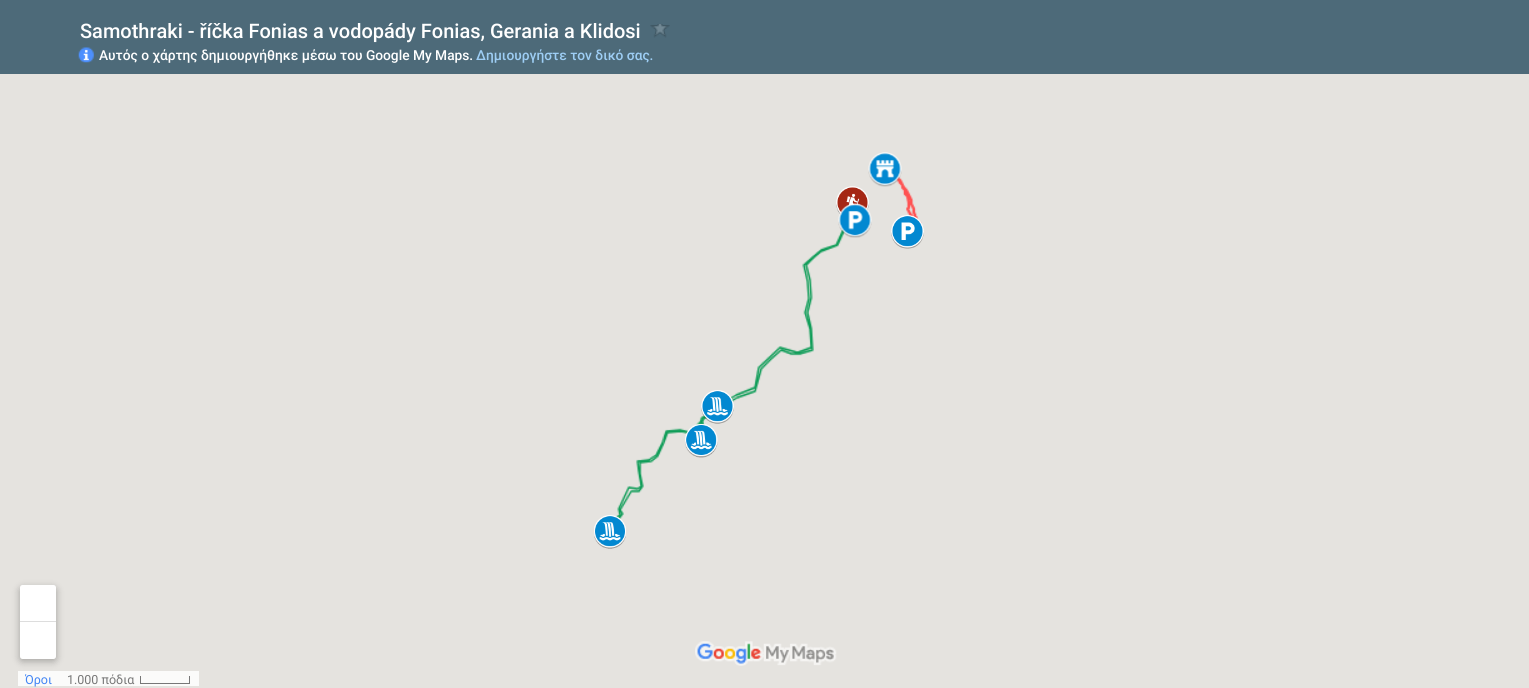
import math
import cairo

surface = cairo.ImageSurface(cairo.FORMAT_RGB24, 1529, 688)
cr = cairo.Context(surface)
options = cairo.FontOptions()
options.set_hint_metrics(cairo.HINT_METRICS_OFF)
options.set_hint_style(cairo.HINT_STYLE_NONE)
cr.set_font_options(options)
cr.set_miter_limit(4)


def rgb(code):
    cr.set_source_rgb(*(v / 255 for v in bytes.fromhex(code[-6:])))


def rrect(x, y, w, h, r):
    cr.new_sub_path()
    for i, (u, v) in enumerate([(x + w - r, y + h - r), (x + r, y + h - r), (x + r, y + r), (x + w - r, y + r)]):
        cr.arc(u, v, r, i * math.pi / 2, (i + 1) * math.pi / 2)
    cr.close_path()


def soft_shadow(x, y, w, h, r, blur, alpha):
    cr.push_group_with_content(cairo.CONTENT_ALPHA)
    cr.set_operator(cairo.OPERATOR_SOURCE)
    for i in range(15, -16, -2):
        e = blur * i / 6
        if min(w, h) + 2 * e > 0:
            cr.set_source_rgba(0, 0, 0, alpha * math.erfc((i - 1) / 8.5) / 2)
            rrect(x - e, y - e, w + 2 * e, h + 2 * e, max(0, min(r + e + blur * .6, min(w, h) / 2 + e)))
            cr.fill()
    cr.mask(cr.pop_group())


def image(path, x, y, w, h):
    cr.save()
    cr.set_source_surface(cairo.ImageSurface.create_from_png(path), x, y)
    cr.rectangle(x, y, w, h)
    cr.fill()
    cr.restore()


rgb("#e5e3df")
cr.paint()
rgb("#4d6a79")
cr.rectangle(0, 0, 1529, 74)
cr.fill()
image("img/1.png", 650, 24, 20, 14)
image("img/2.png", 78, 47, 16, 16)
image("img/10.png", 730, 176, 192, 226)
image("img/4.png", 836, 186, 33, 29)
image("img/3.png", 868, 152, 34, 35)
image("img/5.png", 838, 203, 34, 35)
image("img/6.png", 891, 215, 33, 34)
image("img/11.png", 663, 415, 45, 30)
image("img/8.png", 685, 423, 33, 35)
image("img/7.png", 701, 390, 33, 34)
image("img/12.png", 615, 436, 49, 84)
image("img/9.png", 594, 515, 32, 34)
rgb("#000000")
soft_shadow(20, 588, 36, 73, 2.5, 4, 0.3)
rgb("#ffffff")
rrect(20, 585, 36, 74, 2.5)
cr.fill()
rgb("#dddddd")
cr.rectangle(20, 621, 36, 1)
cr.fill()
image("img/13.png", 695, 641, 142, 25)
for x, y, w, h, color in [
    (18, 671, 181, 15, "#fbfbfa"),
    (140, 683, 50, 1, "#777777"),
    (140, 676, 1, 8, "#777777"),
    (189, 676, 1, 8, "#777777"),
]:
    rgb(color)
    cr.rectangle(x, y, w, h)
    cr.fill()
cr.select_font_face("Roboto Medium")
cr.set_font_size(20)
rgb("#ffffff")
cr.move_to(80, 38)
cr.show_text("Samothraki - říčka Fonias a vodopády Fonias, Gerania a Klidosi")
cr.set_font_size(13.75)
cr.move_to(99, 60)
cr.show_text("Αυτός ο χάρτης δημιουργήθηκε μέσω του Google My Maps.")
rgb("#9ecef5")
cr.move_to(476, 60)
cr.show_text("Δημιουργήστε τον δικό σας.")
cr.select_font_face("Roboto")
cr.set_font_size(12.5)
rgb("#4285f4")
cr.move_to(25, 684)
cr.show_text("Όροι")
rgb("#777777")
cr.move_to(67, 684)
cr.show_text("1.000 πόδια")
surface.write_to_png("page.png")
